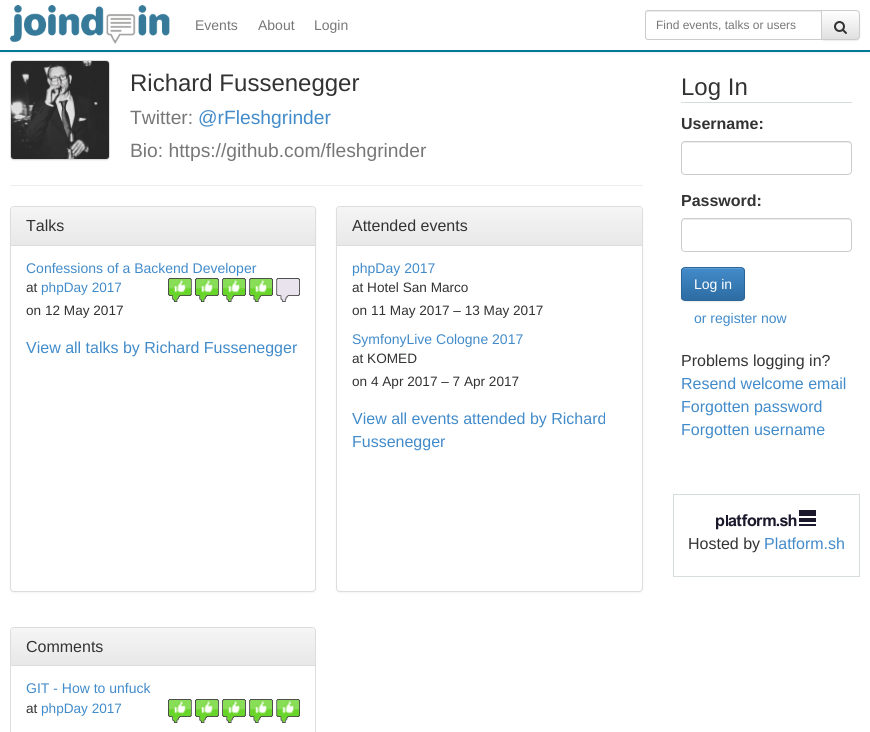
import math
import cairo

surface = cairo.ImageSurface(cairo.FORMAT_RGB24, 870, 732)
cr = cairo.Context(surface)
options = cairo.FontOptions()
options.set_hint_metrics(cairo.HINT_METRICS_OFF)
options.set_hint_style(cairo.HINT_STYLE_NONE)
cr.set_font_options(options)
cr.set_miter_limit(4)


def rgb(code):
    cr.set_source_rgb(*(v / 255 for v in bytes.fromhex(code[-6:])))


def rrect(x, y, w, h, r):
    cr.new_sub_path()
    for i, (u, v) in enumerate([(x + w - r, y + h - r), (x + r, y + h - r), (x + r, y + r), (x + w - r, y + r)]):
        cr.arc(u, v, r, i * math.pi / 2, (i + 1) * math.pi / 2)
    cr.close_path()


def soft_shadow(x, y, w, h, r, blur, alpha):
    cr.push_group_with_content(cairo.CONTENT_ALPHA)
    cr.set_operator(cairo.OPERATOR_SOURCE)
    for i in range(15, -16, -2):
        e = blur * i / 6
        if min(w, h) + 2 * e > 0:
            cr.set_source_rgba(0, 0, 0, alpha * math.erfc((i - 1) / 8.5) / 2)
            rrect(x - e, y - e, w + 2 * e, h + 2 * e, max(0, min(r + e + blur * .6, min(w, h) / 2 + e)))
            cr.fill()
    cr.mask(cr.pop_group())


def image(path, x, y, w, h):
    cr.save()
    cr.set_source_surface(cairo.ImageSurface.create_from_png(path), x, y)
    cr.rectangle(x, y, w, h)
    cr.fill()
    cr.restore()


rgb("#ffffff")
cr.paint()
rgb("#000000")
soft_shadow(10, 61, 100, 100, 4, 0.5, 0.05)
rrect(10.5, 60.5, 99, 99, 3.5)
rgb("#dddddd")
cr.set_line_width(1)
cr.stroke()
image("img/3.png", 11, 61, 98, 98)
cr.save()
cr.rectangle(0, 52, 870, 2)
cr.clip()
rgb("#000000")
soft_shadow(0, 1, 870, 52, 0, 2.5, 0.07)
cr.restore()
rgb("#007b97")
cr.rectangle(0, 50, 870, 2)
cr.fill()
image("img/1.png", 10, 5, 160, 39)
rgb("#000000")
soft_shadow(821, 11, 39, 30, 4, 0.5, 0.07)
cr.save()
cr.new_path()
cr.move_to(821, 10)
cr.line_to(856, 10)
cr.curve_to(858, 10, 860, 12, 860, 14)
cr.line_to(860, 36)
cr.curve_to(860, 38, 858, 40, 856, 40)
cr.line_to(821, 40)
cr.close_path()
cr.clip()
gradient = cairo.LinearGradient(841, 11, 841, 39)
gradient.add_color_stop_rgba(0, 1, 1, 1, 1)
gradient.add_color_stop_rgba(1, 0.878, 0.878, 0.878, 1)
cr.set_source(gradient)
cr.rectangle(822, 11, 38, 28)
cr.fill()
cr.restore()
cr.new_path()
cr.move_to(821.5, 10.5)
cr.line_to(856, 10.5)
cr.curve_to(858, 10.5, 859.5, 12, 859.5, 14)
cr.line_to(859.5, 36)
cr.curve_to(859.5, 38, 858, 39.5, 856, 39.5)
cr.line_to(821.5, 39.5)
cr.close_path()
rgb("#cccccc")
cr.stroke()
rgb("#ffffff")
cr.new_path()
cr.move_to(648, 10)
cr.line_to(822, 10)
cr.line_to(822, 40)
cr.line_to(648, 40)
cr.curve_to(646.5, 40, 645, 38.5, 645, 37)
cr.line_to(645, 13)
cr.curve_to(645, 11.5, 646.5, 10, 648, 10)
cr.close_path()
cr.fill()
rgb("#ececec")
cr.new_path()
cr.move_to(648, 12)
cr.line_to(821, 12)
cr.line_to(821, 11)
cr.line_to(647, 11)
cr.curve_to(646, 12, 646, 13, 646, 14)
cr.curve_to(646, 13, 647, 12, 648, 12)
cr.close_path()
cr.fill()
cr.new_path()
cr.move_to(648, 10.5)
cr.line_to(821.5, 10.5)
cr.line_to(821.5, 39.5)
cr.line_to(648, 39.5)
cr.curve_to(646.5, 39.5, 645.5, 38.5, 645.5, 37)
cr.line_to(645.5, 13)
cr.curve_to(645.5, 11.5, 646.5, 10.5, 648, 10.5)
cr.close_path()
rgb("#cccccc")
cr.stroke()
image("img/2.png", 834, 21, 13, 13)
rgb("#eeeeee")
cr.rectangle(10, 185, 633, 1)
cr.fill()
rgb("#000000")
soft_shadow(10, 207, 306, 386, 4, 1, 0.05)
rgb("#ffffff")
rrect(10.5, 206.5, 305, 385, 3.5)
cr.fill_preserve()
rgb("#dddddd")
cr.stroke()
gradient = cairo.LinearGradient(163, 207, 163, 245)
gradient.add_color_stop_rgba(0, 0.961, 0.961, 0.961, 1)
gradient.add_color_stop_rgba(1, 0.91, 0.91, 0.91, 1)
cr.set_source(gradient)
cr.new_path()
cr.move_to(14, 207)
cr.line_to(312, 207)
cr.curve_to(313.5, 207, 315, 208.5, 315, 210)
cr.line_to(315, 245)
cr.line_to(11, 245)
cr.line_to(11, 210)
cr.curve_to(11, 208.5, 12.5, 207, 14, 207)
cr.close_path()
cr.fill()
rgb("#dddddd")
cr.rectangle(11, 245, 304, 1)
cr.fill()
image("img/4.png", 168, 278, 132, 24)
rgb("#000000")
soft_shadow(336, 207, 307, 386, 4, 1, 0.05)
rgb("#ffffff")
rrect(336.5, 206.5, 306, 385, 3.5)
cr.fill_preserve()
rgb("#dddddd")
cr.stroke()
gradient = cairo.LinearGradient(490, 207, 490, 245)
gradient.add_color_stop_rgba(0, 0.961, 0.961, 0.961, 1)
gradient.add_color_stop_rgba(1, 0.91, 0.91, 0.91, 1)
cr.set_source(gradient)
cr.new_path()
cr.move_to(340, 207)
cr.line_to(639, 207)
cr.curve_to(640.5, 207, 642, 208.5, 642, 210)
cr.line_to(642, 245)
cr.line_to(337, 245)
cr.line_to(337, 210)
cr.curve_to(337, 208.5, 338.5, 207, 340, 207)
cr.close_path()
cr.fill()
rgb("#dddddd")
cr.rectangle(337, 245, 305, 1)
cr.fill()
rrect(10.5, 627.5, 305, 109, 3.5)
cr.stroke()
gradient = cairo.LinearGradient(163, 628, 163, 665)
gradient.add_color_stop_rgba(0, 0.961, 0.961, 0.961, 1)
gradient.add_color_stop_rgba(1, 0.91, 0.91, 0.91, 1)
cr.set_source(gradient)
cr.new_path()
cr.move_to(14, 628)
cr.line_to(312, 628)
cr.curve_to(313.5, 628, 315, 629.5, 315, 631)
cr.line_to(315, 665)
cr.line_to(11, 665)
cr.line_to(11, 631)
cr.curve_to(11, 629.5, 12.5, 628, 14, 628)
cr.close_path()
cr.fill()
rgb("#dddddd")
cr.rectangle(11, 665, 304, 1)
cr.fill()
image("img/5.png", 168, 699, 132, 24)
rgb("#d7dcdf")
cr.rectangle(681, 102, 171, 1)
cr.fill()
rgb("#ececec")
cr.new_path()
cr.move_to(685, 143)
cr.line_to(848, 143)
cr.curve_to(850, 143, 851, 144, 851, 146)
cr.line_to(851, 145)
cr.curve_to(851, 143, 850, 142, 848, 142)
cr.line_to(685, 142)
cr.curve_to(683, 142, 682, 143, 682, 145)
cr.line_to(682, 146)
cr.curve_to(682, 144, 683, 143, 685, 143)
cr.close_path()
cr.fill()
rrect(681.5, 141.5, 170, 33, 3.5)
rgb("#cccccc")
cr.stroke()
rgb("#ececec")
cr.new_path()
cr.move_to(685, 220)
cr.line_to(848, 220)
cr.curve_to(850, 220, 851, 221, 851, 223)
cr.line_to(851, 222)
cr.curve_to(851, 220, 850, 219, 848, 219)
cr.line_to(685, 219)
cr.curve_to(683, 219, 682, 220, 682, 222)
cr.line_to(682, 223)
cr.curve_to(682, 221, 683, 220, 685, 220)
cr.close_path()
cr.fill()
rrect(681.5, 218.5, 170, 33, 3.5)
rgb("#cccccc")
cr.stroke()
rgb("#000000")
soft_shadow(681, 268, 64, 34, 4, 0.5, 0.07)
cr.save()
rrect(681, 267, 64, 34, 4)
cr.clip()
gradient = cairo.LinearGradient(713, 268, 713, 300)
gradient.add_color_stop_rgba(0, 0.259, 0.545, 0.792, 1)
gradient.add_color_stop_rgba(1, 0.176, 0.424, 0.635, 1)
cr.set_source(gradient)
cr.rectangle(681, 268, 64, 32)
cr.fill()
cr.restore()
rgb("#5e9cd1")
cr.new_path()
cr.move_to(685, 269)
cr.line_to(741, 269)
cr.curve_to(743, 269, 744, 270, 744, 272)
cr.curve_to(744, 266, 736, 268, 732, 268)
cr.line_to(694, 268)
cr.curve_to(690, 268, 682, 266, 682, 272)
cr.curve_to(682, 270, 683, 269, 685, 269)
cr.close_path()
cr.fill()
rrect(681.5, 267.5, 63, 33, 3.5)
rgb("#2b669a")
cr.stroke()
cr.rectangle(673.5, 494.5, 186, 82)
rgb("#d7dcdf")
cr.stroke()
image("img/6.png", 716, 510, 100, 20)
cr.select_font_face("Liberation Sans")
cr.set_font_size(14)
rgb("#777777")
for x, y, s in [
    (195, 30, "Events"),
    (258, 30, "About"),
    (314, 30, "Login"),
]:
    cr.move_to(x, y)
    cr.show_text(s)
cr.set_font_size(12)
cr.move_to(656, 29)
cr.show_text("Find events, talks or users")
cr.set_font_size(24)
rgb("#333333")
cr.move_to(130, 91)
cr.show_text("Richard Fussenegger")
cr.set_font_size(19.25)
rgb("#777777")
cr.move_to(130, 124)
cr.show_text("Twitter:")
rgb("#428bca")
cr.move_to(198, 124)
cr.show_text("@rFleshgrinder")
rgb("#777777")
cr.move_to(130, 157)
cr.show_text("Bio: https://github.com/fleshgrinder")
cr.set_font_size(16)
rgb("#333333")
cr.move_to(26, 231)
cr.show_text("Talks")
cr.set_font_size(14)
rgb("#428bca")
cr.move_to(26, 273)
cr.show_text("Confessions of a Backend Developer")
cr.set_font_size(13.6)
rgb("#333333")
cr.move_to(26, 292)
cr.show_text("at")
rgb("#428bca")
cr.move_to(41, 292)
cr.show_text("phpDay 2017")
rgb("#333333")
cr.move_to(26, 315)
cr.show_text("on 12 May 2017")
cr.set_font_size(16)
rgb("#428bca")
cr.move_to(26, 353)
cr.show_text("View all talks by Richard Fussenegger")
rgb("#333333")
cr.move_to(352, 231)
cr.show_text("Attended events")
cr.set_font_size(14)
rgb("#428bca")
cr.move_to(352, 273)
cr.show_text("phpDay 2017")
cr.set_font_size(13.6)
rgb("#333333")
cr.move_to(352, 292)
cr.show_text("at Hotel San Marco")
cr.move_to(352, 315)
cr.show_text("on 11 May 2017 – 13 May 2017")
cr.set_font_size(14)
rgb("#428bca")
cr.move_to(352, 344)
cr.show_text("SymfonyLive Cologne 2017")
cr.set_font_size(13.6)
rgb("#333333")
cr.move_to(352, 363)
cr.show_text("at KOMED")
cr.move_to(352, 386)
cr.show_text("on 4 Apr 2017 – 7 Apr 2017")
cr.set_font_size(16)
rgb("#428bca")
cr.move_to(352, 424)
cr.show_text("View all events attended by Richard")
cr.move_to(352, 447)
cr.show_text("Fussenegger")
rgb("#333333")
cr.move_to(26, 652)
cr.show_text("Comments")
cr.set_font_size(14)
rgb("#428bca")
cr.move_to(26, 693)
cr.show_text("GIT - How to unfuck")
cr.set_font_size(13.6)
rgb("#333333")
cr.move_to(26, 713)
cr.show_text("at")
rgb("#428bca")
cr.move_to(41, 713)
cr.show_text("phpDay 2017")
cr.set_font_size(24)
rgb("#333333")
cr.move_to(681, 95)
cr.show_text("Log In")
cr.select_font_face("Liberation Sans", cairo.FONT_SLANT_NORMAL, cairo.FONT_WEIGHT_BOLD)
cr.set_font_size(16)
cr.move_to(681, 129)
cr.show_text("Username:")
cr.move_to(681, 206)
cr.show_text("Password:")
cr.select_font_face("Liberation Sans")
cr.set_font_size(14)
rgb("#ffffff")
cr.move_to(694, 289)
cr.show_text("Log in")
rgb("#428bca")
cr.move_to(694, 323)
cr.show_text("or register now")
cr.set_font_size(16)
rgb("#333333")
cr.move_to(681, 366)
cr.show_text("Problems logging in?")
rgb("#428bca")
for x, y, s in [
    (681, 389, "Resend welcome email"),
    (681, 412, "Forgotten password"),
    (681, 435, "Forgotten username"),
]:
    cr.move_to(x, y)
    cr.show_text(s)
rgb("#333333")
cr.move_to(688, 549)
cr.show_text("Hosted by")
rgb("#428bca")
cr.move_to(764, 549)
cr.show_text("Platform.sh")
surface.write_to_png("page.png")
